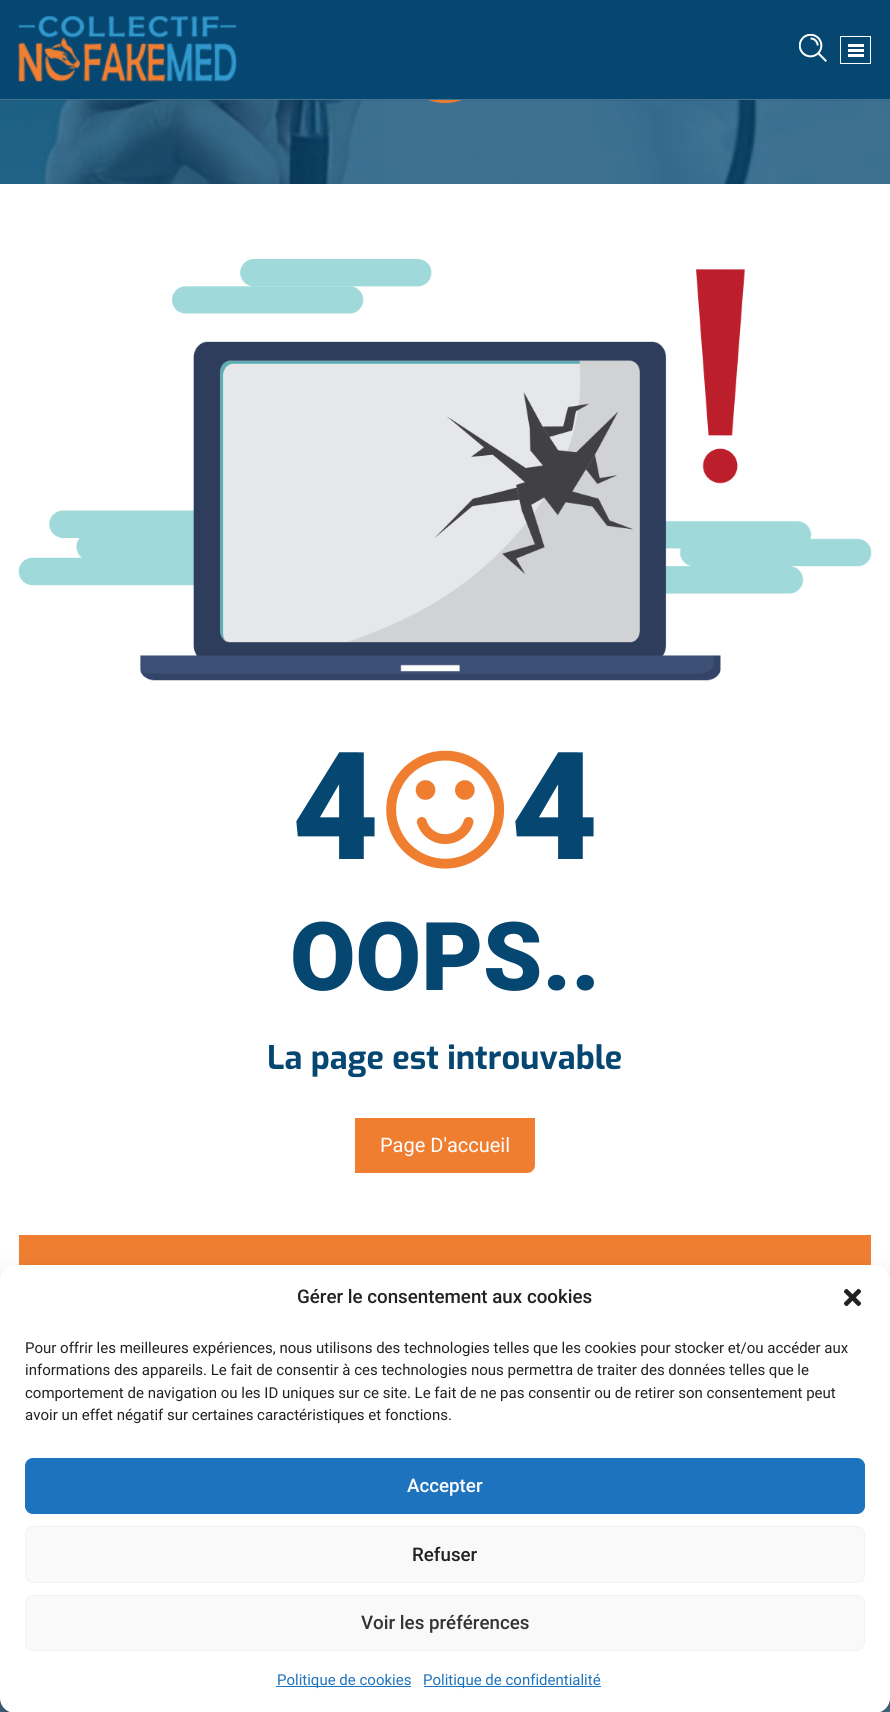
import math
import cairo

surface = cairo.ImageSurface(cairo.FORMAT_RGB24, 890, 1712)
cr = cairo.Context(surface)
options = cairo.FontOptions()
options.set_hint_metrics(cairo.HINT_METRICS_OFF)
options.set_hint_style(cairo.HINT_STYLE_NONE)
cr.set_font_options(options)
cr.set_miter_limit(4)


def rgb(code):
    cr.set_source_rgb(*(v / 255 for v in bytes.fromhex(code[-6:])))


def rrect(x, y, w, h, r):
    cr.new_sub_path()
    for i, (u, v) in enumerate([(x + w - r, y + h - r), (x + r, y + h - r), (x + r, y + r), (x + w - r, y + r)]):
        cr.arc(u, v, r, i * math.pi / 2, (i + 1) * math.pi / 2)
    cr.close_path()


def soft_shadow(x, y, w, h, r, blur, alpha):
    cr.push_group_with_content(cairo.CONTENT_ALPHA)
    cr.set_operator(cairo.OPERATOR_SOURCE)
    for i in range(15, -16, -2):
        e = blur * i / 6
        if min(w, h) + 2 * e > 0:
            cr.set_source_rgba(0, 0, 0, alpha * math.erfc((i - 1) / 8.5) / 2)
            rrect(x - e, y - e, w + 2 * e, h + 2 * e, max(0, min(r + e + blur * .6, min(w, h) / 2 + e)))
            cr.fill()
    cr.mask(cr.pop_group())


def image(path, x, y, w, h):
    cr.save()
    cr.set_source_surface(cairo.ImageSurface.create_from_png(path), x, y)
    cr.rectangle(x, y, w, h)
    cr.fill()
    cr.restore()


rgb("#ffffff")
cr.paint()
image("img/3.png", 0, 100, 890, 84)
rgb("#ef7e31")
cr.arc(445, 54, 49, 0, 2 * math.pi)
cr.fill()
rgb("#000000")
soft_shadow(0, 0, 890, 100, 0, 0.5, 0.2)
rgb("#064772")
cr.rectangle(0, 0, 890, 99)
cr.fill()
rgb("#447595")
cr.rectangle(0, 99, 890, 1)
cr.fill()
image("img/1.png", 18, 16, 219, 66)
image("img/2.png", 799, 34, 28, 28)
cr.rectangle(840.5, 36.5, 30, 27)
rgb("#ffffff")
cr.set_line_width(1)
cr.stroke()
for x, y, w, h, color in [
    (848, 44, 16, 3, "#ffffff"),
    (848, 49, 16, 3, "#ffffff"),
    (848, 54, 16, 3, "#ffffff"),
]:
    rgb(color)
    cr.rectangle(x, y, w, h)
    cr.fill()
image("img/4.png", 18, 259, 854, 422)
image("img/5.png", 386, 750, 119, 119)
rgb("#ef7e31")
cr.new_path()
cr.move_to(355, 1118)
cr.line_to(535, 1118)
cr.line_to(535, 1165)
cr.curve_to(535, 1169.5, 531.5, 1173, 527, 1173)
cr.line_to(355, 1173)
cr.close_path()
cr.fill()
cr.rectangle(19, 1235, 852, 30)
cr.fill()
image("img/6.png", 0, 1698, 890, 14)
rgb("#000000")
soft_shadow(0, 1273, 890, 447, 15, 4, 0.23)
soft_shadow(0, 1278, 890, 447, 15, 12.5, 0.19)
rgb("#ffffff")
rrect(0, 1265, 890, 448, 15)
cr.fill()
image("img/7.png", 843, 1288, 19, 19)
rgb("#1e73be")
rrect(25.5, 1458.5, 839, 55, 7.5)
cr.fill_preserve()
cr.stroke()
rgb("#f9f9f9")
rrect(25.5, 1526.5, 839, 56, 7.5)
cr.fill_preserve()
rgb("#f2f2f2")
cr.stroke()
rgb("#f9f9f9")
rrect(25.5, 1595.5, 839, 55, 7.5)
cr.fill_preserve()
rgb("#f2f2f2")
cr.stroke()
rgb("#1e73be")
cr.rectangle(276, 1686, 135, 1)
cr.fill()
cr.rectangle(424, 1686, 177, 1)
cr.fill()
cr.select_font_face("Roboto Black")
cr.set_font_size(150)
rgb("#064772")
cr.move_to(292, 859)
cr.show_text("4")
cr.move_to(511, 859)
cr.show_text("4")
cr.set_font_size(95)
cr.move_to(290, 990)
cr.show_text("OOPS..")
cr.select_font_face("Exo", cairo.FONT_SLANT_NORMAL, cairo.FONT_WEIGHT_BOLD)
cr.set_font_size(32.5)
cr.move_to(267, 1069)
cr.show_text("La page est introuvable")
cr.select_font_face("Roboto")
cr.set_font_size(20)
rgb("#ffffff")
cr.move_to(380, 1152)
cr.show_text("Page D'accueil")
cr.select_font_face("Roboto Medium")
cr.set_font_size(18.75)
rgb("#222222")
cr.move_to(297, 1303)
cr.show_text("Gérer le consentement aux cookies")
cr.select_font_face("Roboto")
cr.set_font_size(15)
for x, y, s in [
    (25, 1353, "Pour offrir les meilleures expériences, nous utilisons des technologies telles que les cookies pour stocker et/ou accéder aux"),
    (25, 1375, "informations des appareils. Le fait de consentir à ces technologies nous permettra de traiter des données telles que le"),
    (25, 1398, "comportement de navigation ou les ID uniques sur ce site. Le fait de ne pas consentir ou de retirer son consentement peut"),
    (25, 1420, "avoir un effet négatif sur certaines caractéristiques et fonctions."),
]:
    cr.move_to(x, y)
    cr.show_text(s)
cr.select_font_face("Roboto Medium")
cr.set_font_size(18.75)
rgb("#ffffff")
cr.move_to(407, 1492)
cr.show_text("Accepter")
rgb("#222222")
cr.move_to(412, 1561)
cr.show_text("Refuser")
rgb("#333333")
cr.move_to(361, 1629)
cr.show_text("Voir les préférences")
cr.select_font_face("Roboto")
cr.set_font_size(15)
rgb("#1e73be")
cr.move_to(277, 1685)
cr.show_text("Politique de cookies")
cr.move_to(423, 1685)
cr.show_text("Politique de confidentialité")
surface.write_to_png("page.png")
